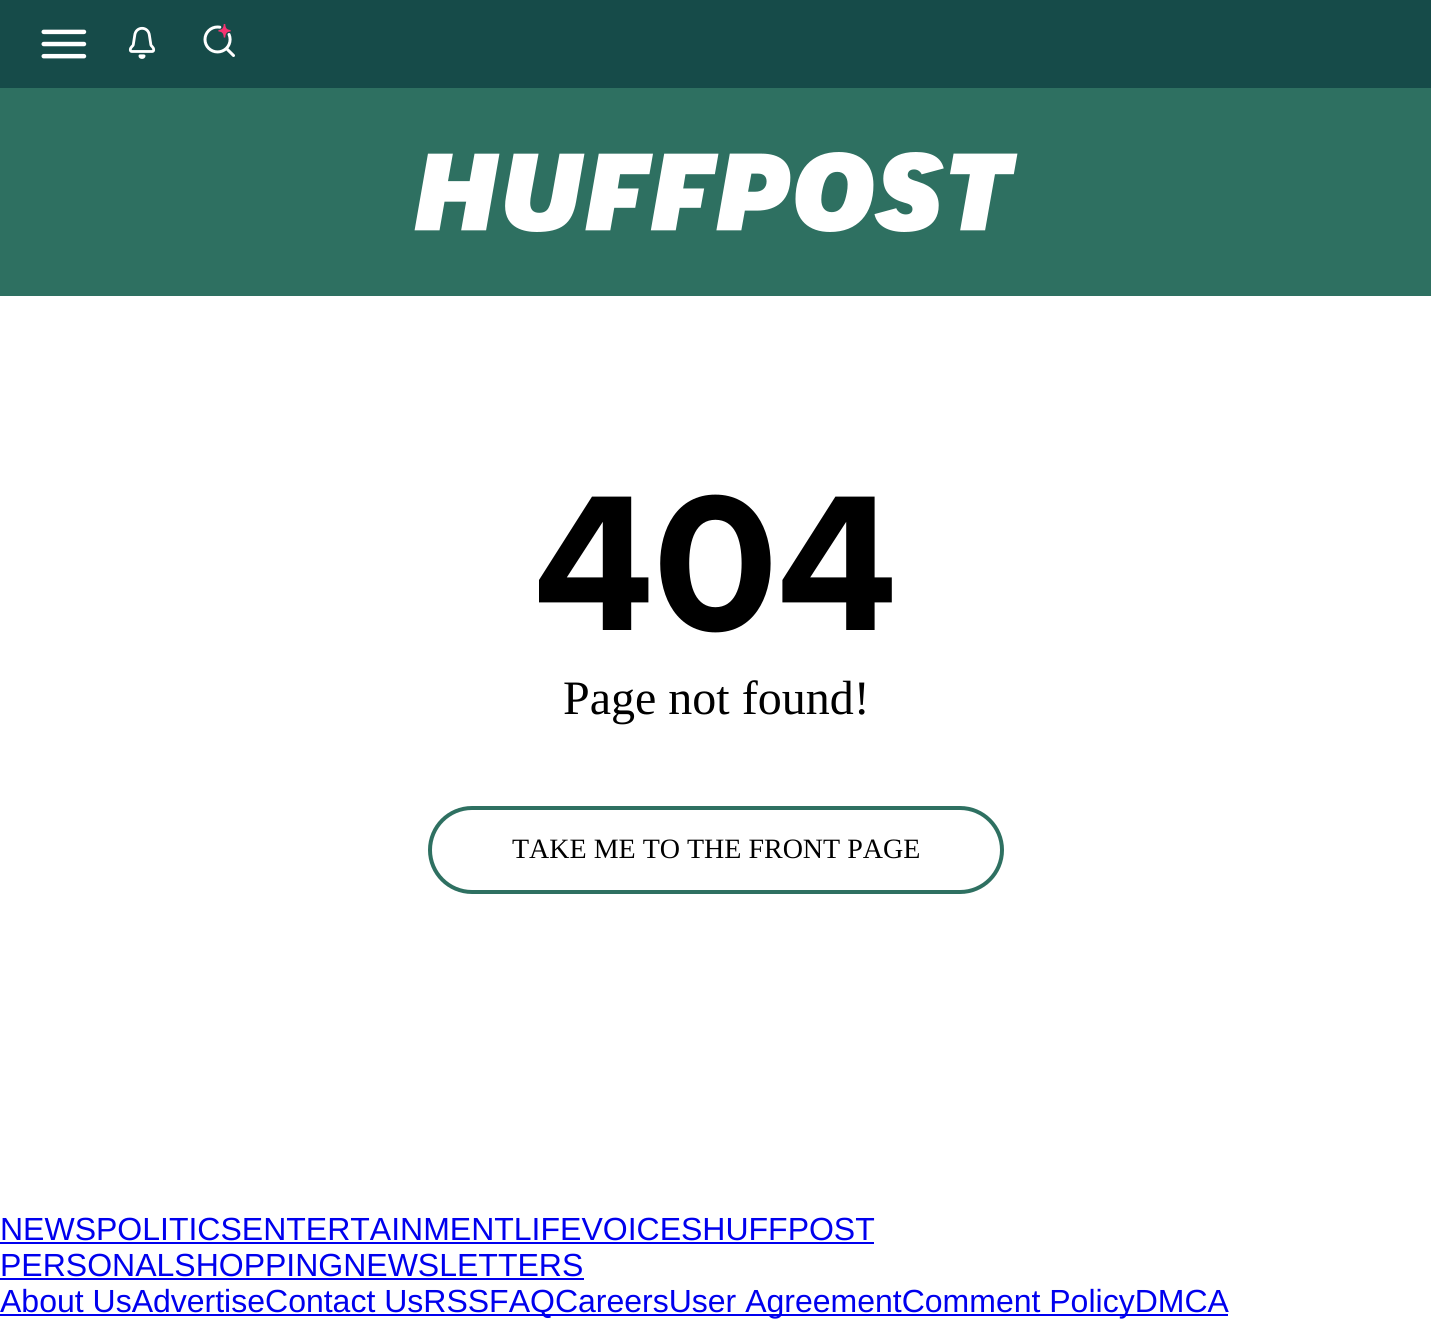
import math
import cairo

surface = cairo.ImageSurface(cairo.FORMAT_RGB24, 1431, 1337)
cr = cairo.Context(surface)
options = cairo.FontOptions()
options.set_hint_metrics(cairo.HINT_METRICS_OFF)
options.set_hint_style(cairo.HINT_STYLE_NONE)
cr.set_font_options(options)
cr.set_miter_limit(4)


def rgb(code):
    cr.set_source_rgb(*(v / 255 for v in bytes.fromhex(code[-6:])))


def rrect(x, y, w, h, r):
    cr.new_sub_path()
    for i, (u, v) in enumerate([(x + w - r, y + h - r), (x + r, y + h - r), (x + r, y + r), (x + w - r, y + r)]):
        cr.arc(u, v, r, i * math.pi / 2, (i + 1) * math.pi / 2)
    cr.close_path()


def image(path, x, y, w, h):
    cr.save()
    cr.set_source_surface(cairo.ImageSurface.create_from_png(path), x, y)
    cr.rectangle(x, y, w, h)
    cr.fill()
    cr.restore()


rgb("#ffffff")
cr.paint()
rgb("#164b49")
cr.rectangle(0, 0, 1431, 88)
cr.fill()
image("img/1.png", 41, 29, 46, 30)
image("img/2.png", 128, 26, 28, 33)
image("img/3.png", 203, 24, 32, 33)
rgb("#2e7061")
cr.rectangle(0, 88, 1431, 208)
cr.fill()
image("img/4.png", 414, 152, 604, 80)
image("img/5.png", 539, 494, 353, 139)
rrect(430, 808, 572, 84, 42)
cr.set_line_width(4)
cr.stroke()
for x, y, w, h, color in [
    (0, 1242, 874, 2, "#0000ee"),
    (0, 1278, 584, 2, "#0000ee"),
    (0, 1314, 1134, 2, "#0000ee"),
    (1134, 1314, 94, 2, "#0000ee"),
]:
    rgb(color)
    cr.rectangle(x, y, w, h)
    cr.fill()
cr.select_font_face("Liberation Serif")
cr.set_font_size(48)
rgb("#000000")
cr.move_to(563, 714)
cr.show_text("Page not found!")
cr.set_font_size(28)
cr.move_to(512, 858)
cr.show_text("TAKE ME TO THE FRONT PAGE")
cr.select_font_face("Liberation Sans")
cr.set_font_size(32)
rgb("#0000ee")
for x, y, s in [
    (0, 1240, "NEWSPOLITICSENTERTAINMENTLIFEVOICESHUFFPOST"),
    (0, 1276, "PERSONALSHOPPINGNEWSLETTERS"),
    (0, 1312, "About UsAdvertiseContact UsRSSFAQCareersUser AgreementComment PolicyDMCA"),
]:
    cr.move_to(x, y)
    cr.show_text(s)
surface.write_to_png("page.png")
